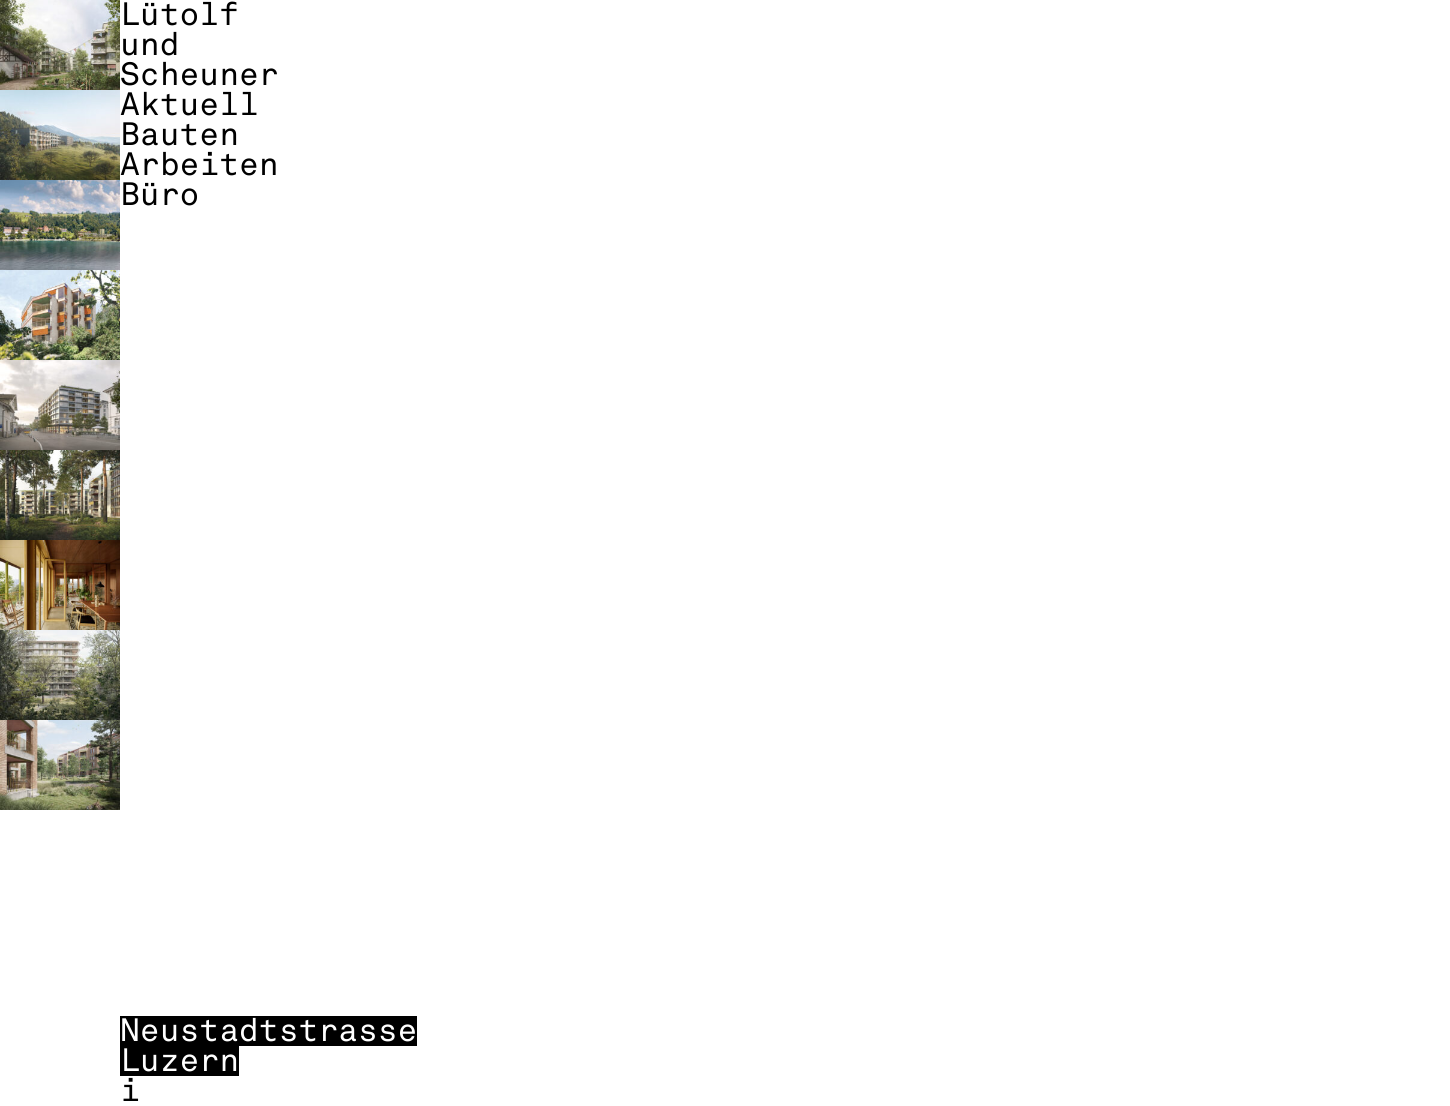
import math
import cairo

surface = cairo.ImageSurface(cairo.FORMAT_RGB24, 1450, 1106)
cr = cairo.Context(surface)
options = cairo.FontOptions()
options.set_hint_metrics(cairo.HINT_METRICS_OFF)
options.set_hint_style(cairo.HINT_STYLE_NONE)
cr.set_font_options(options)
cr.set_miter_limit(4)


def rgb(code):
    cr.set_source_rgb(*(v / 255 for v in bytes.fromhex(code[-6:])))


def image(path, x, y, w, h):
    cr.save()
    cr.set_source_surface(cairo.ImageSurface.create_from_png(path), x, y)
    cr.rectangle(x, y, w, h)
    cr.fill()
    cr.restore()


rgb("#ffffff")
cr.paint()
image("img/1.png", 0, 0, 120, 90)
image("img/2.png", 0, 90, 120, 90)
image("img/3.png", 0, 180, 120, 90)
image("img/4.png", 0, 270, 120, 90)
image("img/5.png", 0, 360, 120, 90)
image("img/6.png", 0, 450, 120, 90)
image("img/7.png", 0, 540, 120, 90)
image("img/8.png", 0, 630, 120, 90)
image("img/9.png", 0, 720, 120, 90)
rgb("#000000")
cr.rectangle(120, 1016, 297, 30)
cr.fill()
cr.rectangle(120, 1046, 119, 30)
cr.fill()
cr.select_font_face("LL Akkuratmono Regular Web")
cr.set_font_size(32)
for x, y, s in [
    (120, 25, "Lütolf"),
    (120, 55, "und"),
    (120, 85, "Scheuner"),
    (120, 115, "Aktuell"),
    (120, 145, "Bauten"),
    (120, 175, "Arbeiten"),
    (120, 205, "Büro"),
]:
    cr.move_to(x, y)
    cr.show_text(s)
rgb("#ffffff")
cr.move_to(120, 1041)
cr.show_text("Neustadtstrasse")
cr.move_to(120, 1071)
cr.show_text("Luzern")
rgb("#000000")
cr.move_to(120, 1101)
cr.show_text("i")
surface.write_to_png("page.png")
